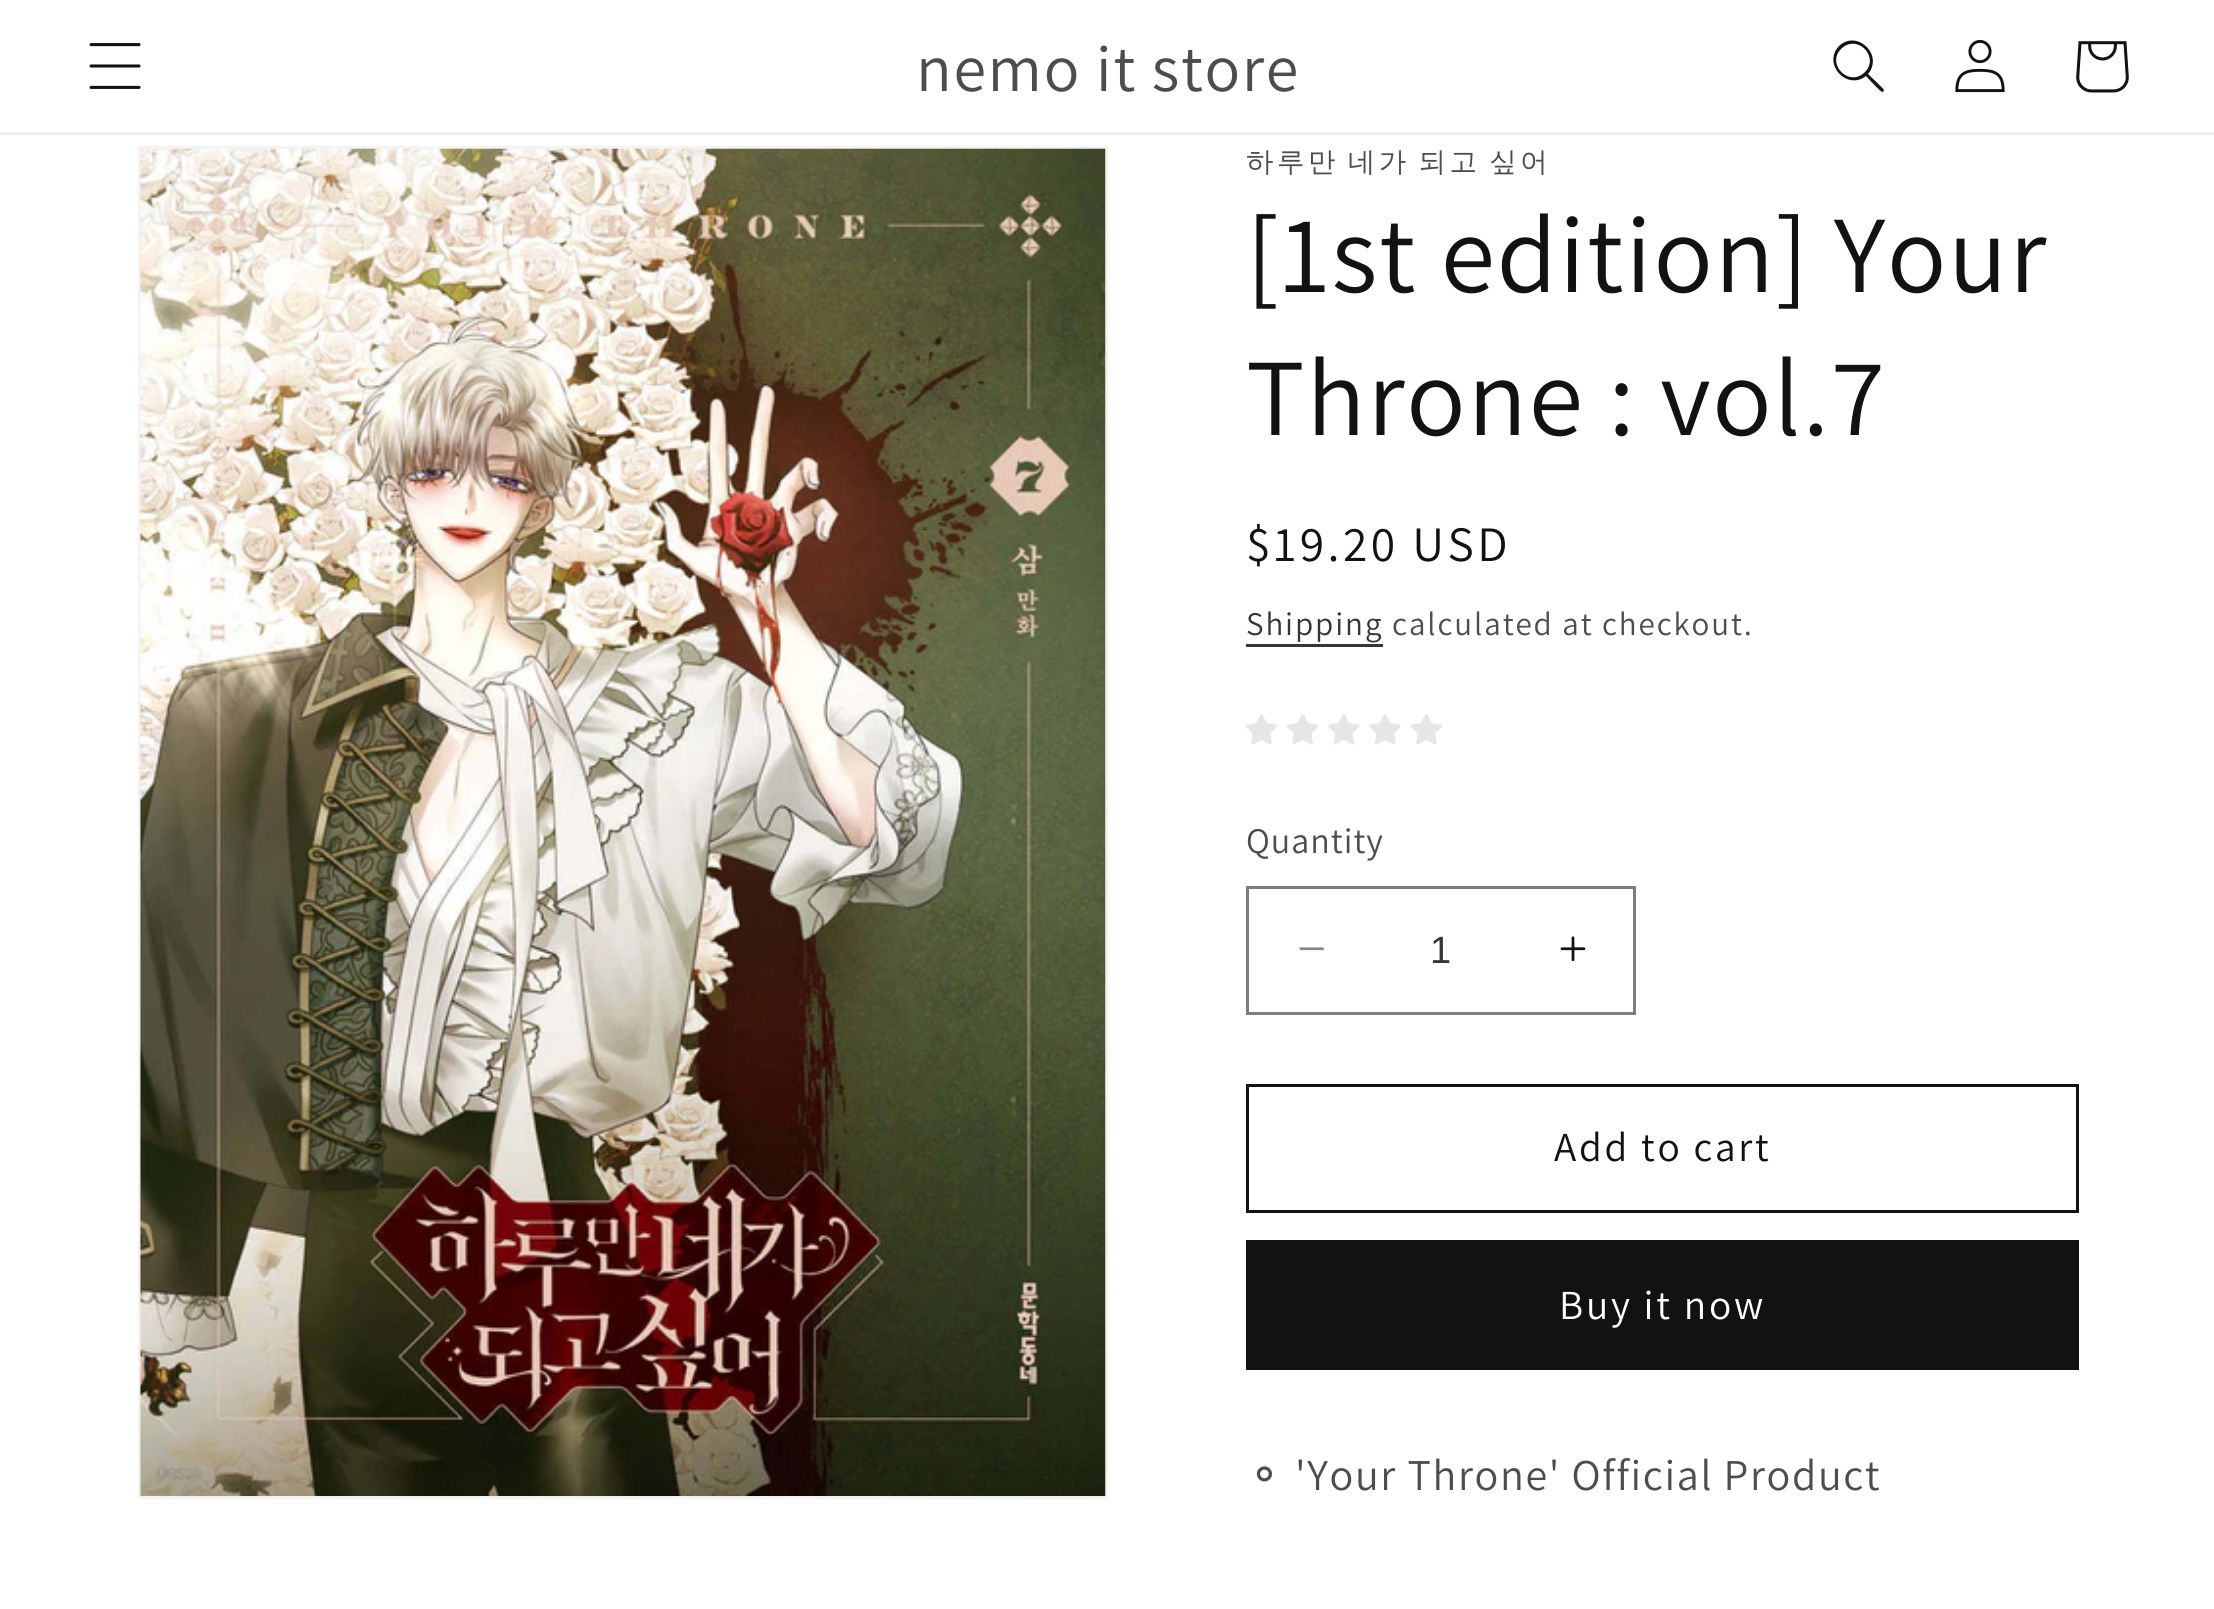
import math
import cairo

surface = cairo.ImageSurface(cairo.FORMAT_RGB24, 2214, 1609)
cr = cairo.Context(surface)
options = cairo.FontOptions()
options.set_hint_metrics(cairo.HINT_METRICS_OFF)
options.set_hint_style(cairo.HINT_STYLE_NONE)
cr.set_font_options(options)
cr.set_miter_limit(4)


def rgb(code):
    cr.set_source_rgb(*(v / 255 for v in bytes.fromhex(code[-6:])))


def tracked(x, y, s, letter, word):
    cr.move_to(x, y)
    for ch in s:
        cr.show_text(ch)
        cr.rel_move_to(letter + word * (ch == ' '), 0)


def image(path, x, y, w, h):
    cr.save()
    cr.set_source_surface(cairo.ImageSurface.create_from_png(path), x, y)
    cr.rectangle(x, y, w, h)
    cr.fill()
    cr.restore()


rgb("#ffffff")
cr.paint()
rgb("#ececec")
cr.rectangle(0, 132, 2214, 3)
cr.fill()
image("img/1.png", 89, 43, 52, 46)
rgb("#121212")
cr.set_fill_rule(cairo.FILL_RULE_EVEN_ODD)
cr.new_path()
cr.move_to(1865, 72)
cr.curve_to(1849, 88, 1826, 64, 1841, 49)
cr.curve_to(1857, 33, 1880, 57, 1865, 72)
cr.close_path()
cr.move_to(1866, 76)
cr.curve_to(1847, 91, 1822, 64, 1839, 46)
cr.curve_to(1857, 29, 1884, 55, 1868, 74)
cr.curve_to(1870, 76, 1884, 89, 1884, 90)
cr.line_to(1883, 92)
cr.curve_to(1881, 93, 1868, 78, 1866, 76)
cr.close_path()
cr.fill()
image("img/2.png", 1955, 40, 50, 53)
image("img/3.png", 2076, 41, 53, 52)
cr.rectangle(139.5, 147.5, 967, 1350)
rgb("#f3f3f3")
cr.set_line_width(3)
cr.stroke()
image("img/4.png", 140, 148, 966, 1348)
rgb("#363636")
cr.rectangle(1246, 644, 137, 3)
cr.fill()
image("img/5.png", 1246, 714, 31, 31)
image("img/6.png", 1287, 714, 32, 31)
image("img/7.png", 1328, 714, 32, 31)
image("img/8.png", 1369, 714, 32, 31)
image("img/9.png", 1410, 714, 32, 31)
image("img/10.png", 1299, 947, 26, 4)
image("img/11.png", 1560, 936, 26, 26)
cr.rectangle(1247.5, 887.5, 387, 126)
rgb("#7d7d7d")
cr.stroke()
cr.rectangle(1247.5, 1085.5, 830, 126)
rgb("#121212")
cr.stroke()
cr.rectangle(1246, 1240, 833, 130)
cr.fill()
cr.select_font_face("Assistant")
cr.set_font_size(66)
rgb("#4d4d4d")
tracked(916, 91, "nemo it store", 1.65, 0)
cr.select_font_face("WenQuanYi Zen Hei Medium")
cr.set_font_size(27.5)
tracked(1246, 171, "하루만 네가 되고 싶어", 3.5, -3)
cr.select_font_face("Assistant")
cr.set_font_size(110)
rgb("#121212")
tracked(1246, 292, "[1st edition] Your", 1.65, 0)
tracked(1246, 435, "Throne : vol.7", 1.65, 0)
cr.set_font_size(49.5)
tracked(1246, 561, "$19.20 USD", 3.5, 0)
cr.set_font_size(33)
rgb("#363636")
tracked(1246, 635, "Shipping", 1.9, 0)
rgb("#4d4d4d")
tracked(1392, 635, "calculated at checkout.", 1.9, 0)
cr.set_font_size(36)
tracked(1246, 853, "Quantity", 1, 0)
cr.select_font_face("Liberation Sans")
cr.set_font_size(38)
rgb("#363636")
cr.move_to(1430, 963)
cr.show_text("1")
cr.select_font_face("Assistant")
cr.set_font_size(41.25)
rgb("#121212")
tracked(1554, 1161, "Add to cart", 2.75, 0)
rgb("#ffffff")
tracked(1559, 1319, "Buy it now", 2.75, 0)
cr.select_font_face("DejaVu Sans")
cr.set_font_size(44)
rgb("#4d4d4d")
tracked(1246, 1490, "⚬", 1.65, 0)
cr.select_font_face("Assistant")
tracked(1295, 1490, "'Your Throne' Official Product", 1.65, 0)
surface.write_to_png("page.png")
